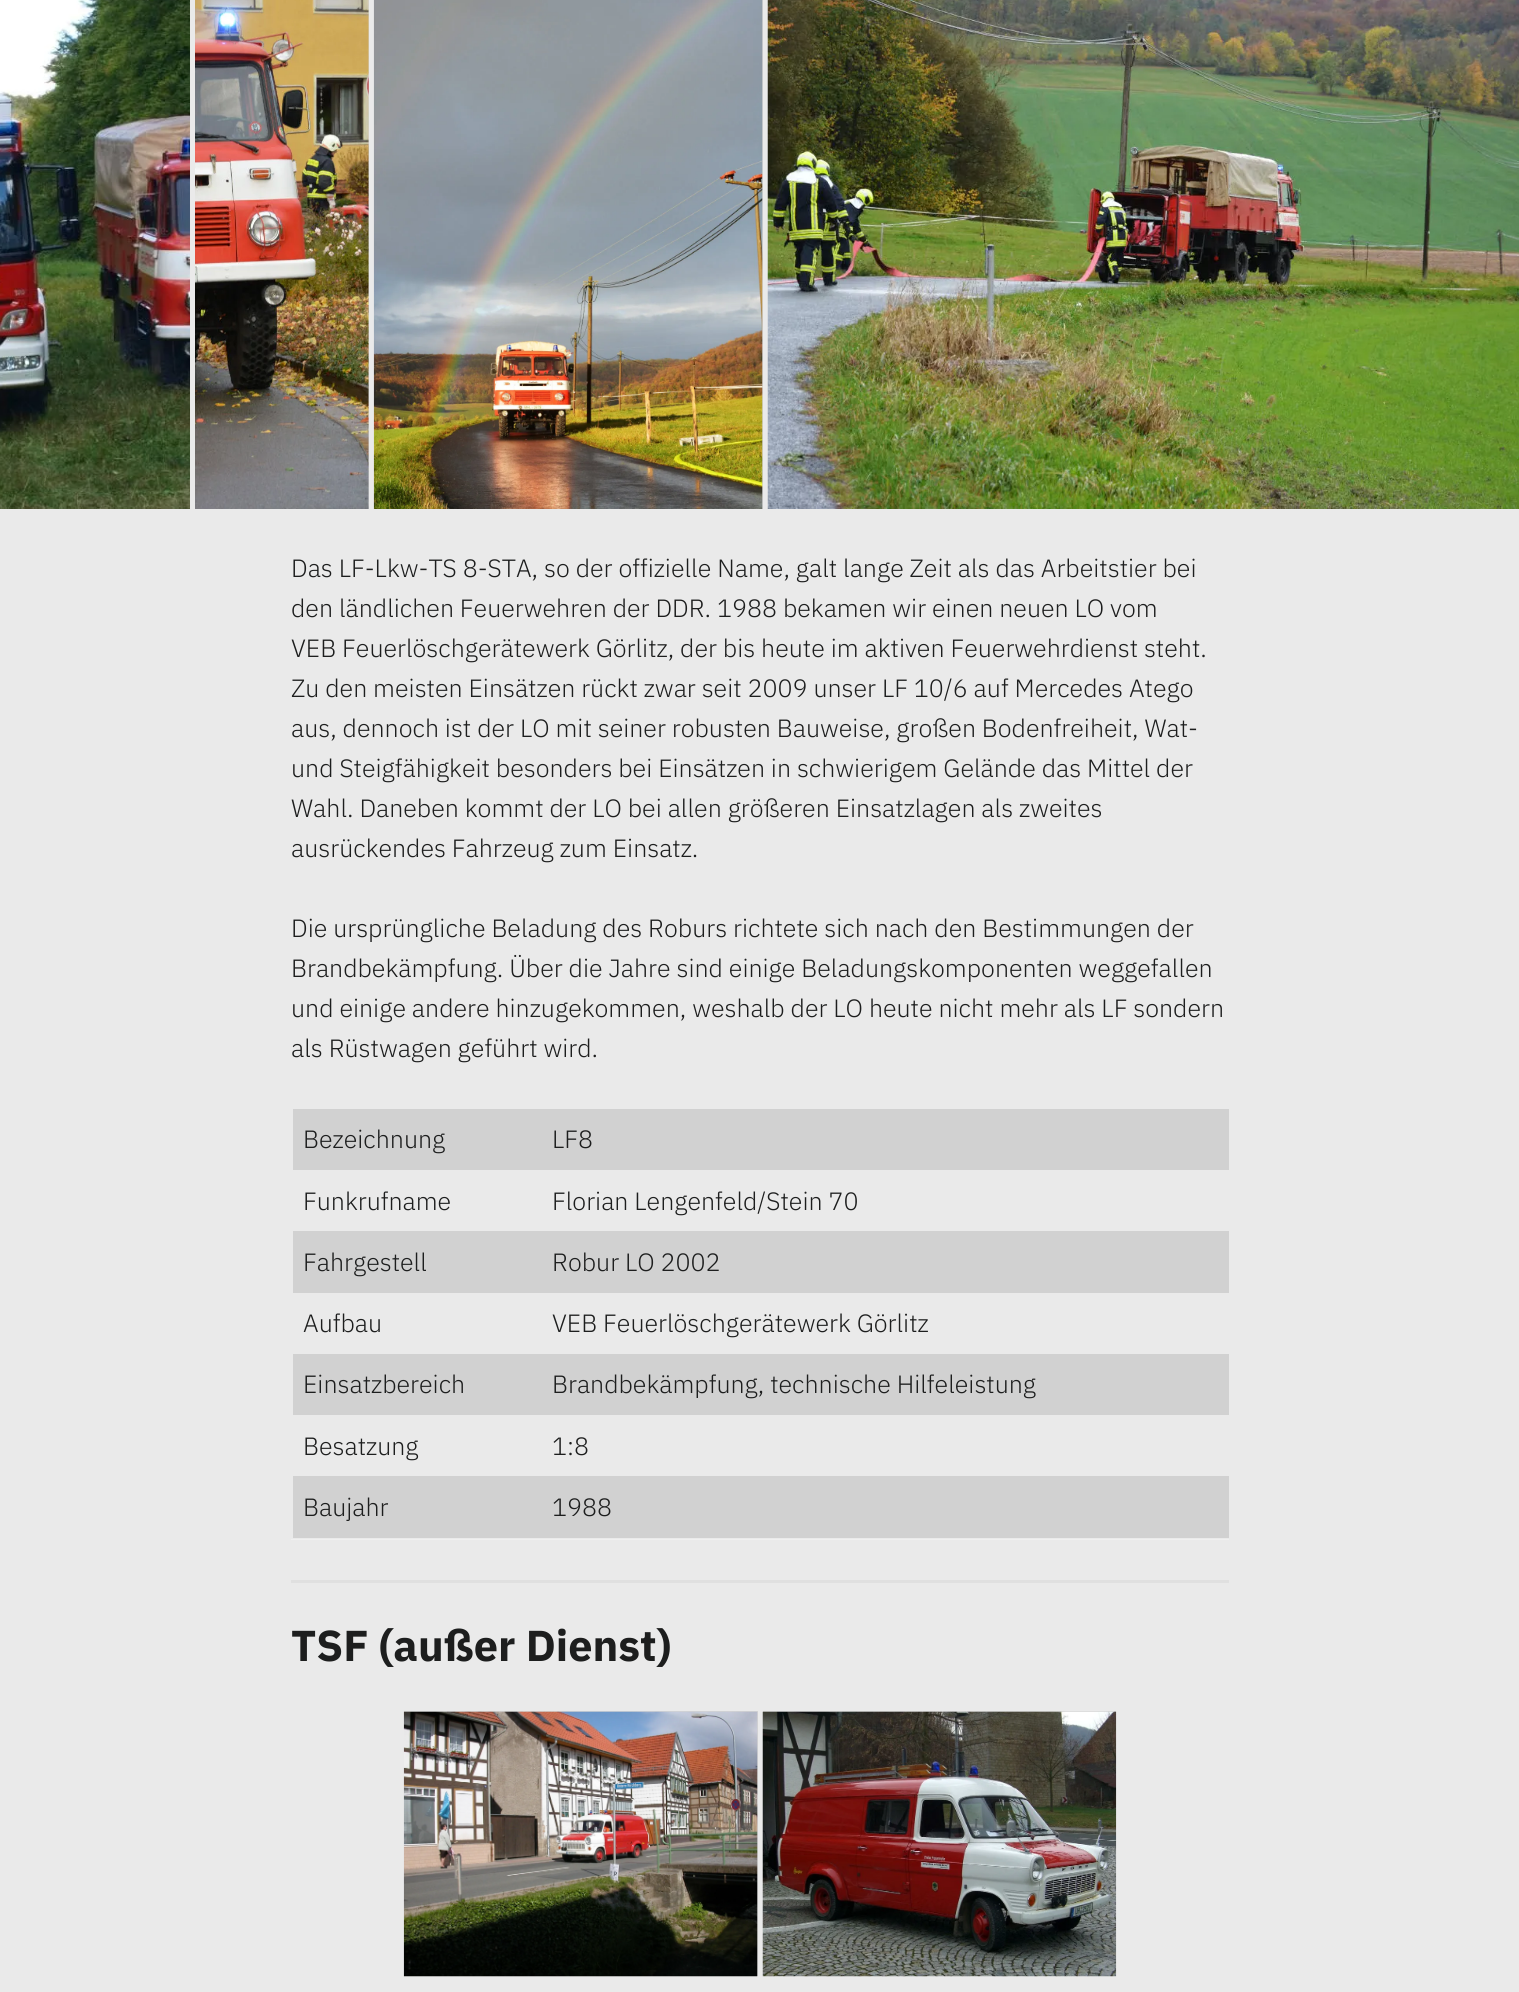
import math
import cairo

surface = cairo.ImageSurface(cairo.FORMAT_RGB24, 1519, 1992)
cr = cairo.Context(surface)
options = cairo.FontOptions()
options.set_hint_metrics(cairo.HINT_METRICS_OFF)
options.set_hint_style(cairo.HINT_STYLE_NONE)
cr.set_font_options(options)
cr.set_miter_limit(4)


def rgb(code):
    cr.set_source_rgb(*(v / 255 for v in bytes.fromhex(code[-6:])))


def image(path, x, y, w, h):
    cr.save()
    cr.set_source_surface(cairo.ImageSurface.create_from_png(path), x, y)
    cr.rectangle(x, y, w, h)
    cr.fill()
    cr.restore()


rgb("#eaeaea")
cr.paint()
image("img/1.png", 0, 0, 190, 509)
rgb("#d3d3d3")
cr.rectangle(368, 0, 1, 509)
cr.fill()
image("img/2.png", 195, 0, 174, 509)
rgb("#d2d2d2")
cr.rectangle(762, 0, 1, 509)
cr.fill()
image("img/3.png", 373, 0, 390, 509)
image("img/4.png", 767, 0, 752, 509)
for x, y, w, h, color in [
    (291, 1539, 938, 1, "#f0f0f0"),
    (293, 1109, 936, 61, "#d1d1d1"),
    (293, 1231, 936, 62, "#d1d1d1"),
    (293, 1354, 936, 61, "#d1d1d1"),
    (293, 1476, 936, 62, "#d1d1d1"),
    (291, 1580, 938, 3, "#e0e0e0"),
    (404, 1711, 354, 265, "#d3d3d3"),
]:
    rgb(color)
    cr.rectangle(x, y, w, h)
    cr.fill()
image("img/5.png", 403, 1711, 355, 266)
cr.rectangle(763, 1711, 353, 1)
cr.fill()
image("img/6.png", 762, 1711, 355, 266)
cr.select_font_face("IBM Plex Sans Light")
cr.set_font_size(25)
rgb("#1d1e1e")
for x, y, s in [
    (291, 577, "Das LF-Lkw-TS 8-STA, so der offizielle Name, galt lange Zeit als das Arbeitstier bei"),
    (291, 617, "den ländlichen Feuerwehren der DDR. 1988 bekamen wir einen neuen LO vom"),
    (291, 657, "VEB Feuerlöschgerätewerk Görlitz, der bis heute im aktiven Feuerwehrdienst steht."),
    (291, 697, "Zu den meisten Einsätzen rückt zwar seit 2009 unser LF 10/6 auf Mercedes Atego"),
    (291, 737, "aus, dennoch ist der LO mit seiner robusten Bauweise, großen Bodenfreiheit, Wat-"),
    (291, 777, "und Steigfähigkeit besonders bei Einsätzen in schwierigem Gelände das Mittel der"),
    (291, 817, "Wahl. Daneben kommt der LO bei allen größeren Einsatzlagen als zweites"),
    (291, 857, "ausrückendes Fahrzeug zum Einsatz."),
    (291, 937, "Die ursprüngliche Beladung des Roburs richtete sich nach den Bestimmungen der"),
    (291, 977, "Brandbekämpfung. Über die Jahre sind einige Beladungskomponenten weggefallen"),
    (291, 1017, "und einige andere hinzugekommen, weshalb der LO heute nicht mehr als LF sondern"),
    (291, 1057, "als Rüstwagen geführt wird."),
    (303, 1148, "Bezeichnung"),
    (552, 1148, "LF8"),
    (303, 1210, "Funkrufname"),
    (552, 1210, "Florian Lengenfeld/Stein 70"),
    (303, 1271, "Fahrgestell"),
    (552, 1271, "Robur LO 2002"),
    (303, 1332, "Aufbau"),
    (552, 1332, "VEB Feuerlöschgerätewerk Görlitz"),
    (303, 1393, "Einsatzbereich"),
    (552, 1393, "Brandbekämpfung, technische Hilfeleistung"),
    (303, 1455, "Besatzung"),
    (552, 1455, "1:8"),
    (303, 1516, "Baujahr"),
    (552, 1516, "1988"),
]:
    cr.move_to(x, y)
    cr.show_text(s)
cr.select_font_face("IBM Plex Sans", cairo.FONT_SLANT_NORMAL, cairo.FONT_WEIGHT_BOLD)
cr.set_font_size(43.25)
cr.move_to(291, 1661)
cr.show_text("TSF (außer Dienst)")
surface.write_to_png("page.png")
